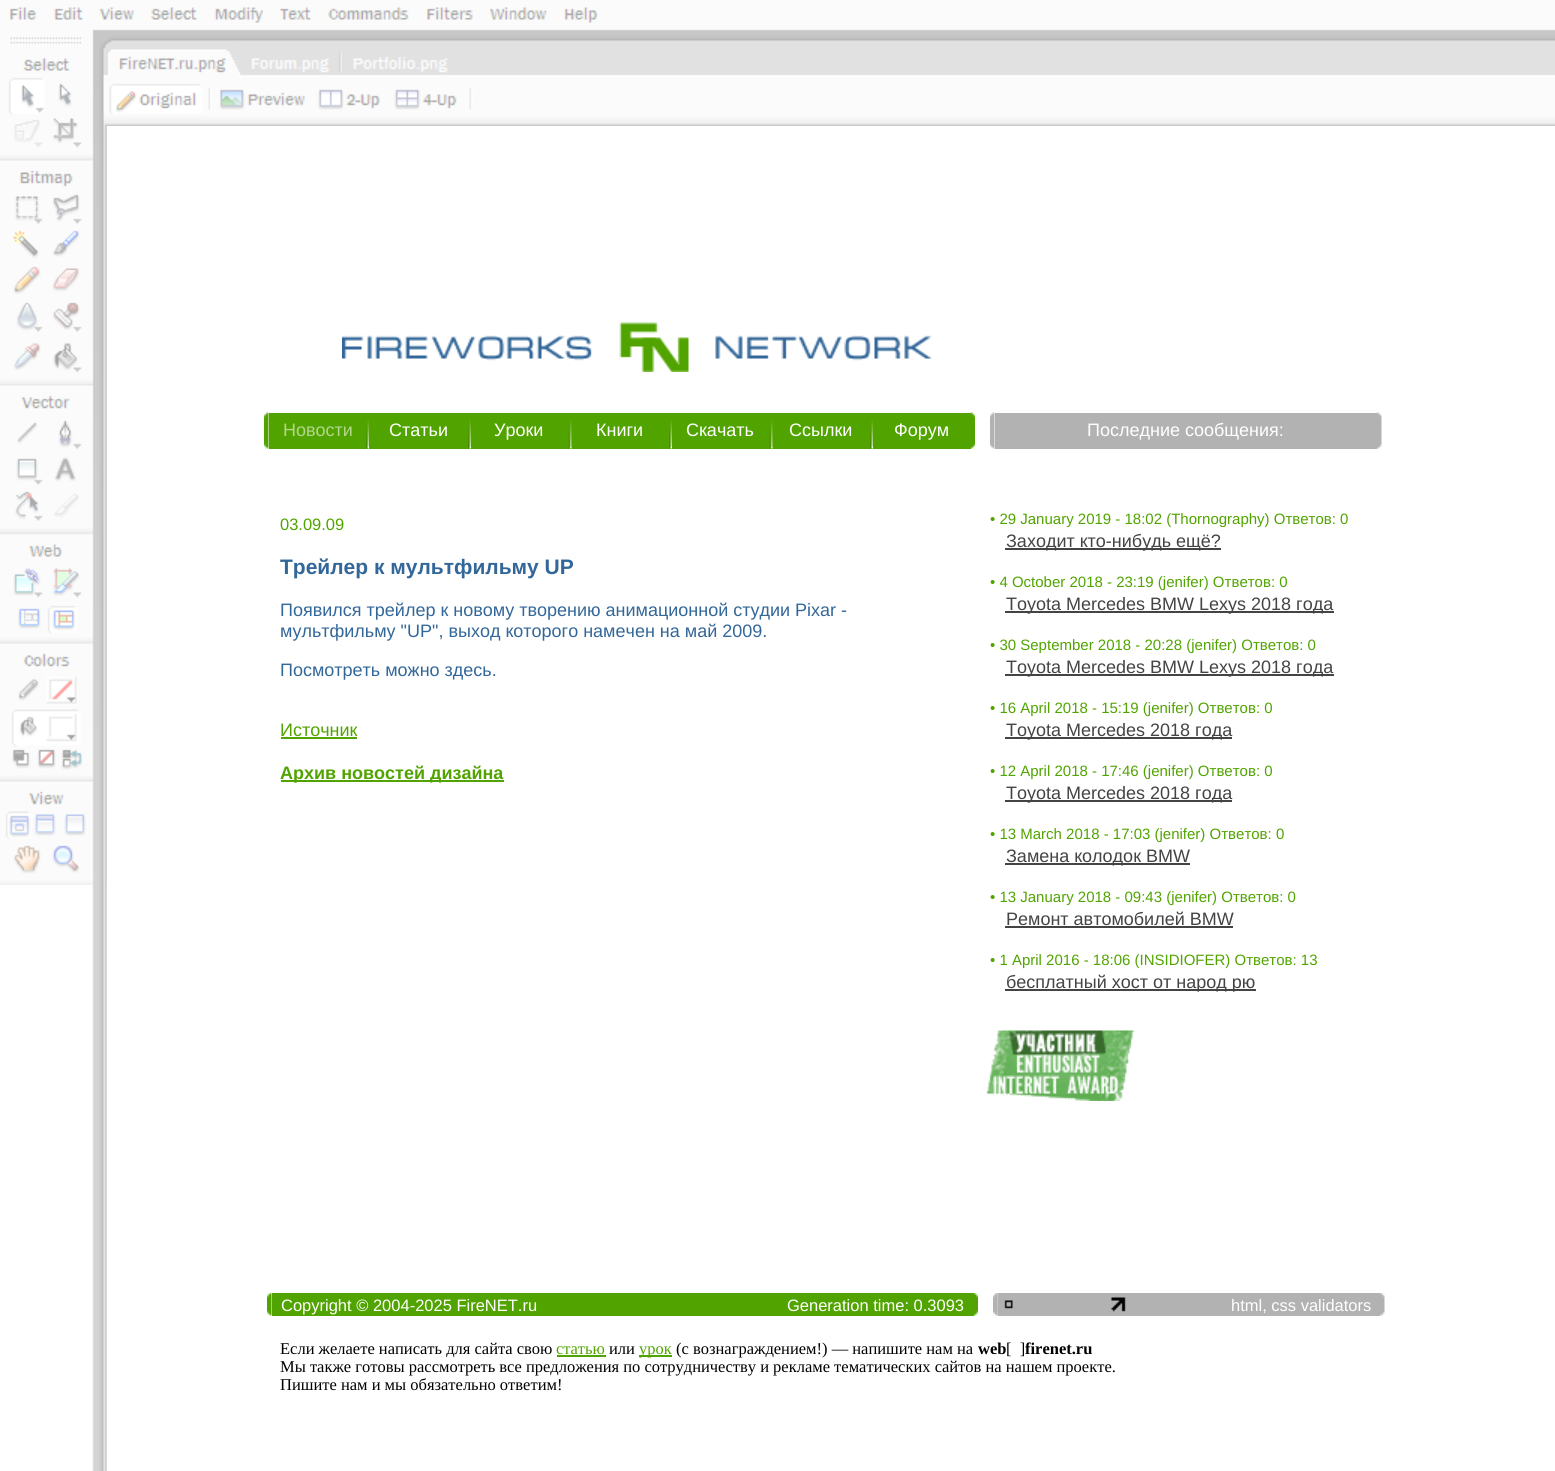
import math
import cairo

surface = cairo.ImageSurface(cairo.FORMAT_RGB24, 1555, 1471)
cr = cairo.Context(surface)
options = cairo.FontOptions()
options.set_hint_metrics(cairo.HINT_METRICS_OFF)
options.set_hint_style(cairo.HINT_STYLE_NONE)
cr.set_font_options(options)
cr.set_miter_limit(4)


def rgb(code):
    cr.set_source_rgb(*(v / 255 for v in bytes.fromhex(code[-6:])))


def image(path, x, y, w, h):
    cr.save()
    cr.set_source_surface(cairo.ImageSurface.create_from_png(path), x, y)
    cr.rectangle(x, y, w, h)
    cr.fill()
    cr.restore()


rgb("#ffffff")
cr.paint()
image("img/1.png", 92, 885, 14, 586)
image("img/2.png", 0, 0, 1555, 126)
image("img/3.png", 0, 7, 598, 119)
image("img/4.png", 108, 49, 133, 27)
image("img/5.png", 250, 52, 91, 21)
image("img/6.png", 340, 52, 108, 21)
rgb("#d8d8d5")
cr.rectangle(106, 126, 1, 1345)
cr.fill()
image("img/7.png", 0, 126, 107, 759)
image("img/8.png", 342, 322, 590, 50)
image("img/9.png", 264, 412, 5, 37)
rgb("#51a400")
cr.rectangle(269, 413, 702, 36)
cr.fill()
image("img/10.png", 366, 420, 3, 29)
image("img/10.png", 468, 420, 3, 29)
image("img/11.png", 568, 420, 4, 29)
image("img/12.png", 669, 420, 3, 29)
image("img/11.png", 769, 420, 4, 29)
image("img/12.png", 870, 420, 3, 29)
image("img/13.png", 970, 412, 5, 37)
image("img/14.png", 990, 412, 5, 37)
rgb("#b2b2b2")
cr.rectangle(995, 413, 382, 36)
cr.fill()
image("img/15.png", 1377, 412, 5, 37)
for x, y, w, h, color in [
    (1005, 548, 216, 2, "#444444"),
    (1005, 611, 329, 2, "#444444"),
    (1005, 674, 329, 2, "#444444"),
    (1005, 737, 227, 2, "#444444"),
    (1005, 800, 227, 2, "#444444"),
    (1005, 863, 185, 2, "#444444"),
    (1005, 926, 228, 2, "#444444"),
    (1005, 989, 251, 2, "#444444"),
]:
    rgb(color)
    cr.rectangle(x, y, w, h)
    cr.fill()
image("img/16.png", 986, 1030, 149, 71)
rgb("#51a400")
cr.rectangle(281, 737, 76, 2)
cr.fill()
cr.rectangle(281, 780, 223, 2)
cr.fill()
image("img/17.png", 267, 1293, 5, 23)
cr.rectangle(272, 1293, 702, 23)
cr.fill()
image("img/18.png", 973, 1293, 5, 23)
rgb("#b2b2b2")
cr.rectangle(998, 1293, 382, 23)
cr.fill()
image("img/20.png", 997, 1293, 129, 23)
image("img/19.png", 993, 1293, 5, 23)
image("img/21.png", 1380, 1293, 5, 23)
rgb("#51a400")
cr.rectangle(557, 1355, 49, 2)
cr.fill()
cr.rectangle(639, 1355, 33, 2)
cr.fill()
cr.select_font_face("Liberation Sans")
cr.set_font_size(18)
rgb("#b2d68d")
cr.move_to(283, 436)
cr.show_text("Новости")
rgb("#ffffff")
for x, y, s in [
    (389, 436, "Статьи"),
    (494, 436, "Уроки"),
    (596, 436, "Книги"),
    (686, 436, "Скачать"),
    (789, 436, "Ссылки"),
    (894, 436, "Форум"),
    (1087, 436, "Последние сообщения:"),
]:
    cr.move_to(x, y)
    cr.show_text(s)
cr.set_font_size(15)
rgb("#51a400")
cr.move_to(990, 524)
cr.show_text("• 29 January 2019 - 18:02 (Thornography) Ответов: 0")
cr.set_font_size(18)
rgb("#444444")
cr.move_to(1006, 547)
cr.show_text("Заходит кто-нибудь ещё?")
cr.set_font_size(15)
rgb("#51a400")
cr.move_to(990, 587)
cr.show_text("• 4 October 2018 - 23:19 (jenifer) Ответов: 0")
cr.set_font_size(18)
rgb("#444444")
cr.move_to(1006, 610)
cr.show_text("Toyota Mercedes BMW Lexys 2018 года")
cr.set_font_size(15)
rgb("#51a400")
cr.move_to(990, 650)
cr.show_text("• 30 September 2018 - 20:28 (jenifer) Ответов: 0")
cr.set_font_size(18)
rgb("#444444")
cr.move_to(1006, 673)
cr.show_text("Toyota Mercedes BMW Lexys 2018 года")
cr.set_font_size(15)
rgb("#51a400")
cr.move_to(990, 713)
cr.show_text("• 16 April 2018 - 15:19 (jenifer) Ответов: 0")
cr.set_font_size(18)
rgb("#444444")
cr.move_to(1006, 736)
cr.show_text("Toyota Mercedes 2018 года")
cr.set_font_size(15)
rgb("#51a400")
cr.move_to(990, 776)
cr.show_text("• 12 April 2018 - 17:46 (jenifer) Ответов: 0")
cr.set_font_size(18)
rgb("#444444")
cr.move_to(1006, 799)
cr.show_text("Toyota Mercedes 2018 года")
cr.set_font_size(15)
rgb("#51a400")
cr.move_to(990, 839)
cr.show_text("• 13 March 2018 - 17:03 (jenifer) Ответов: 0")
cr.set_font_size(18)
rgb("#444444")
cr.move_to(1006, 862)
cr.show_text("Замена колодок BMW")
cr.set_font_size(15)
rgb("#51a400")
cr.move_to(990, 902)
cr.show_text("• 13 January 2018 - 09:43 (jenifer) Ответов: 0")
cr.set_font_size(18)
rgb("#444444")
cr.move_to(1006, 925)
cr.show_text("Ремонт автомобилей BMW")
cr.set_font_size(15)
rgb("#51a400")
cr.move_to(990, 965)
cr.show_text("• 1 April 2016 - 18:06 (INSIDIOFER) Ответов: 13")
cr.set_font_size(18)
rgb("#444444")
cr.move_to(1006, 988)
cr.show_text("бесплатный хост от народ рю")
cr.set_font_size(16.5)
rgb("#51a400")
cr.move_to(280, 530)
cr.show_text("03.09.09")
cr.select_font_face("Liberation Sans", cairo.FONT_SLANT_NORMAL, cairo.FONT_WEIGHT_BOLD)
cr.set_font_size(21)
rgb("#336799")
cr.move_to(280, 574)
cr.show_text("Трейлер к мультфильму UP")
cr.select_font_face("Liberation Sans")
cr.set_font_size(18)
for x, y, s in [
    (280, 616, "Появился трейлер к новому творению анимационной студии Pixar -"),
    (280, 637, "мультфильму \"UP\", выход которого намечен на май 2009."),
    (280, 676, "Посмотреть можно здесь."),
]:
    cr.move_to(x, y)
    cr.show_text(s)
rgb("#51a400")
cr.move_to(280, 736)
cr.show_text("Источник")
cr.select_font_face("Liberation Sans", cairo.FONT_SLANT_NORMAL, cairo.FONT_WEIGHT_BOLD)
cr.move_to(280, 779)
cr.show_text("Архив новостей дизайна")
cr.select_font_face("Liberation Sans")
cr.set_font_size(16.5)
rgb("#ffffff")
for x, y, s in [
    (281, 1311, "Copyright © 2004-2025 FireNET.ru"),
    (787, 1311, "Generation time: 0.3093"),
    (1231, 1311, "html, css validators"),
]:
    cr.move_to(x, y)
    cr.show_text(s)
cr.select_font_face("Liberation Serif")
rgb("#000000")
cr.move_to(280, 1354)
cr.show_text("Если желаете написать для сайта свою")
rgb("#51a400")
cr.move_to(556, 1354)
cr.show_text("статью")
rgb("#000000")
cr.move_to(609, 1354)
cr.show_text("или")
rgb("#51a400")
cr.move_to(639, 1354)
cr.show_text("урок")
rgb("#000000")
cr.move_to(676, 1354)
cr.show_text("(с вознаграждением!) — напишите нам на")
cr.select_font_face("Liberation Serif", cairo.FONT_SLANT_NORMAL, cairo.FONT_WEIGHT_BOLD)
cr.move_to(978, 1354)
cr.show_text("web")
cr.select_font_face("Liberation Serif")
cr.move_to(1006, 1354)
cr.show_text("[  ]")
cr.select_font_face("Liberation Serif", cairo.FONT_SLANT_NORMAL, cairo.FONT_WEIGHT_BOLD)
cr.move_to(1025, 1354)
cr.show_text("firenet.ru")
cr.select_font_face("Liberation Serif")
cr.move_to(280, 1372)
cr.show_text("Мы также готовы рассмотреть все предложения по сотрудничеству и рекламе тематических сайтов на нашем проекте.")
cr.move_to(280, 1390)
cr.show_text("Пишите нам и мы обязательно ответим!")
surface.write_to_png("page.png")
